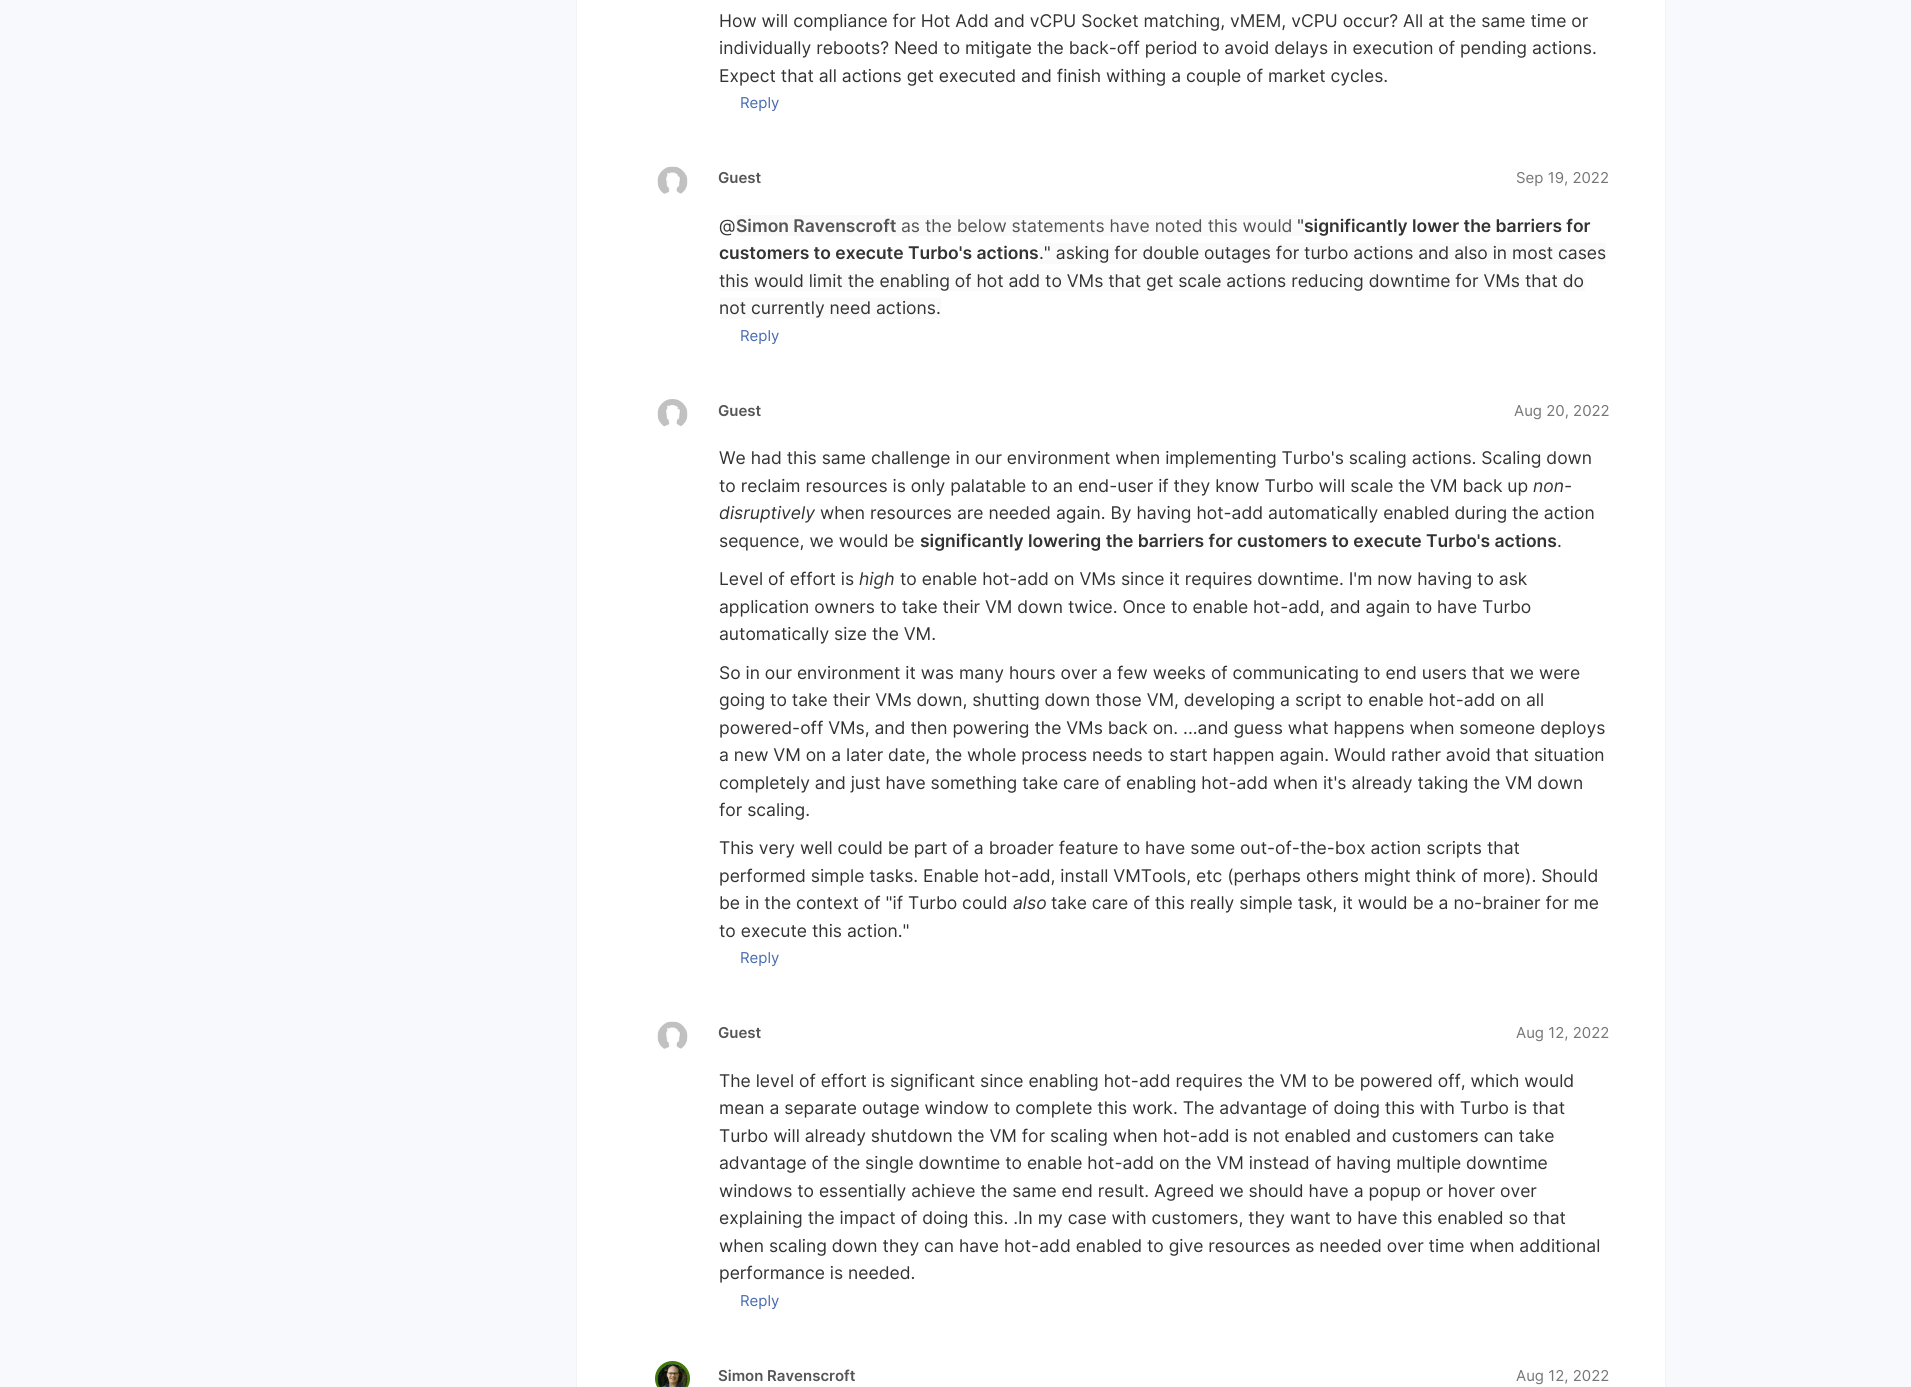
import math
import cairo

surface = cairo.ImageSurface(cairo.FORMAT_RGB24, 1911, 1387)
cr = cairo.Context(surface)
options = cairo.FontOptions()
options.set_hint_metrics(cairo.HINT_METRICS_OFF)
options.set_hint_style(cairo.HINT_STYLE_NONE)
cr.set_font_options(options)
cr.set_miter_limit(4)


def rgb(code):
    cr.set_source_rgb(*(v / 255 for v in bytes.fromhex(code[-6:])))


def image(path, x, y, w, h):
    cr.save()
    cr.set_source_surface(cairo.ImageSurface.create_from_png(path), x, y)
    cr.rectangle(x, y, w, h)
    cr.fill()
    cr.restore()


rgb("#f7f9fc")
cr.paint()
rgb("#ffffff")
cr.rectangle(576.5, -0.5, 1089, 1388)
cr.fill_preserve()
rgb("#f4f4f4")
cr.set_line_width(1)
cr.stroke()
image("img/1.png", 657, 166, 31, 28)
for x, y, w, h, color in [
    (736, 215, 568, 21, "#fafafa"),
    (1039, 243, 567, 21, "#fafafa"),
    (720, 270, 865, 21, "#fafafa"),
    (720, 298, 221, 21, "#fafafa"),
]:
    rgb(color)
    cr.rectangle(x, y, w, h)
    cr.fill()
image("img/2.png", 657, 399, 31, 28)
image("img/1.png", 657, 1021, 31, 28)
cr.arc(672.5, 1378.5, 16, 0, 2 * math.pi)
rgb("#42790b")
cr.set_line_width(3)
cr.stroke()
image("img/3.png", 657, 1364, 31, 23)
cr.select_font_face("Inter")
cr.set_font_size(17.5)
rgb("#333333")
for x, y, s in [
    (719, 27, "How will compliance for Hot Add and vCPU Socket matching, vMEM, vCPU occur? All at the same time or"),
    (719, 54, "individually reboots? Need to mitigate the back-off period to avoid delays in execution of pending actions."),
    (719, 82, "Expect that all actions get executed and finish withing a couple of market cycles."),
]:
    cr.move_to(x, y)
    cr.show_text(s)
cr.set_font_size(15)
rgb("#466bb0")
cr.move_to(740, 108)
cr.show_text("Reply")
cr.select_font_face("Inter SemiBold")
rgb("#555555")
cr.move_to(718, 183)
cr.show_text("Guest")
cr.select_font_face("Inter")
rgb("#767676")
cr.move_to(1516, 183)
cr.show_text("Sep 19, 2022")
cr.set_font_size(17.5)
rgb("#333333")
cr.move_to(719, 232)
cr.show_text("@")
cr.select_font_face("Inter SemiBold")
rgb("#555555")
cr.move_to(736, 232)
cr.show_text("Simon Ravenscroft")
cr.select_font_face("Inter")
cr.move_to(901, 232)
cr.show_text("as the below statements have noted this would")
rgb("#333333")
cr.move_to(1297, 232)
cr.show_text("\"")
cr.select_font_face("Inter SemiBold")
cr.move_to(1304, 232)
cr.show_text("significantly lower the barriers for")
cr.move_to(719, 259)
cr.show_text("customers to execute Turbo's actions")
cr.select_font_face("Inter")
for x, y, s in [
    (1039, 259, ".\" asking for double outages for turbo actions and also in most cases"),
    (719, 287, "this would limit the enabling of hot add to VMs that get scale actions reducing downtime for VMs that do"),
    (719, 314, "not currently need actions."),
]:
    cr.move_to(x, y)
    cr.show_text(s)
cr.set_font_size(15)
rgb("#466bb0")
cr.move_to(740, 341)
cr.show_text("Reply")
cr.select_font_face("Inter SemiBold")
rgb("#555555")
cr.move_to(718, 416)
cr.show_text("Guest")
cr.select_font_face("Inter")
rgb("#767676")
cr.move_to(1514, 416)
cr.show_text("Aug 20, 2022")
cr.set_font_size(17.5)
rgb("#333333")
cr.move_to(719, 464)
cr.show_text("We had this same challenge in our environment when implementing Turbo's scaling actions. Scaling down")
cr.move_to(719, 492)
cr.show_text("to reclaim resources is only palatable to an end-user if they know Turbo will scale the VM back up")
cr.select_font_face("Inter", cairo.FONT_SLANT_ITALIC)
cr.move_to(1533, 492)
cr.show_text("non-")
cr.move_to(719, 519)
cr.show_text("disruptively")
cr.select_font_face("Inter")
cr.move_to(820, 519)
cr.show_text("when resources are needed again. By having hot-add automatically enabled during the action")
cr.move_to(719, 547)
cr.show_text("sequence, we would be")
cr.select_font_face("Inter SemiBold")
cr.move_to(920, 547)
cr.show_text("significantly lowering the barriers for customers to execute Turbo's actions")
cr.select_font_face("Inter")
cr.move_to(1557, 547)
cr.show_text(".")
cr.move_to(719, 585)
cr.show_text("Level of effort is")
cr.select_font_face("Inter", cairo.FONT_SLANT_ITALIC)
cr.move_to(859, 585)
cr.show_text("high")
cr.select_font_face("Inter")
for x, y, s in [
    (900, 585, "to enable hot-add on VMs since it requires downtime. I'm now having to ask"),
    (719, 613, "application owners to take their VM down twice. Once to enable hot-add, and again to have Turbo"),
    (719, 640, "automatically size the VM."),
    (719, 679, "So in our environment it was many hours over a few weeks of communicating to end users that we were"),
    (719, 706, "going to take their VMs down, shutting down those VM, developing a script to enable hot-add on all"),
    (719, 734, "powered-off VMs, and then powering the VMs back on. ...and guess what happens when someone deploys"),
    (719, 761, "a new VM on a later date, the whole process needs to start happen again. Would rather avoid that situation"),
    (719, 789, "completely and just have something take care of enabling hot-add when it's already taking the VM down"),
    (719, 816, "for scaling."),
    (719, 854, "This very well could be part of a broader feature to have some out-of-the-box action scripts that"),
    (719, 882, "performed simple tasks. Enable hot-add, install VMTools, etc (perhaps others might think of more). Should"),
    (719, 909, "be in the context of \"if Turbo could"),
]:
    cr.move_to(x, y)
    cr.show_text(s)
cr.select_font_face("Inter", cairo.FONT_SLANT_ITALIC)
cr.move_to(1013, 909)
cr.show_text("also")
cr.select_font_face("Inter")
cr.move_to(1051, 909)
cr.show_text("take care of this really simple task, it would be a no-brainer for me")
cr.move_to(719, 937)
cr.show_text("to execute this action.\"")
cr.set_font_size(15)
rgb("#466bb0")
cr.move_to(740, 963)
cr.show_text("Reply")
cr.select_font_face("Inter SemiBold")
rgb("#555555")
cr.move_to(718, 1038)
cr.show_text("Guest")
cr.select_font_face("Inter")
rgb("#767676")
cr.move_to(1516, 1038)
cr.show_text("Aug 12, 2022")
cr.set_font_size(17.5)
rgb("#333333")
for x, y, s in [
    (719, 1087, "The level of effort is significant since enabling hot-add requires the VM to be powered off, which would"),
    (719, 1114, "mean a separate outage window to complete this work. The advantage of doing this with Turbo is that"),
    (719, 1142, "Turbo will already shutdown the VM for scaling when hot-add is not enabled and customers can take"),
    (719, 1169, "advantage of the single downtime to enable hot-add on the VM instead of having multiple downtime"),
    (719, 1197, "windows to essentially achieve the same end result. Agreed we should have a popup or hover over"),
    (719, 1224, "explaining the impact of doing this. .In my case with customers, they want to have this enabled so that"),
    (719, 1252, "when scaling down they can have hot-add enabled to give resources as needed over time when additional"),
    (719, 1279, "performance is needed."),
]:
    cr.move_to(x, y)
    cr.show_text(s)
cr.set_font_size(15)
rgb("#466bb0")
cr.move_to(740, 1306)
cr.show_text("Reply")
cr.select_font_face("Inter SemiBold")
rgb("#555555")
cr.move_to(718, 1381)
cr.show_text("Simon Ravenscroft")
cr.select_font_face("Inter")
rgb("#767676")
cr.move_to(1516, 1381)
cr.show_text("Aug 12, 2022")
surface.write_to_png("page.png")
